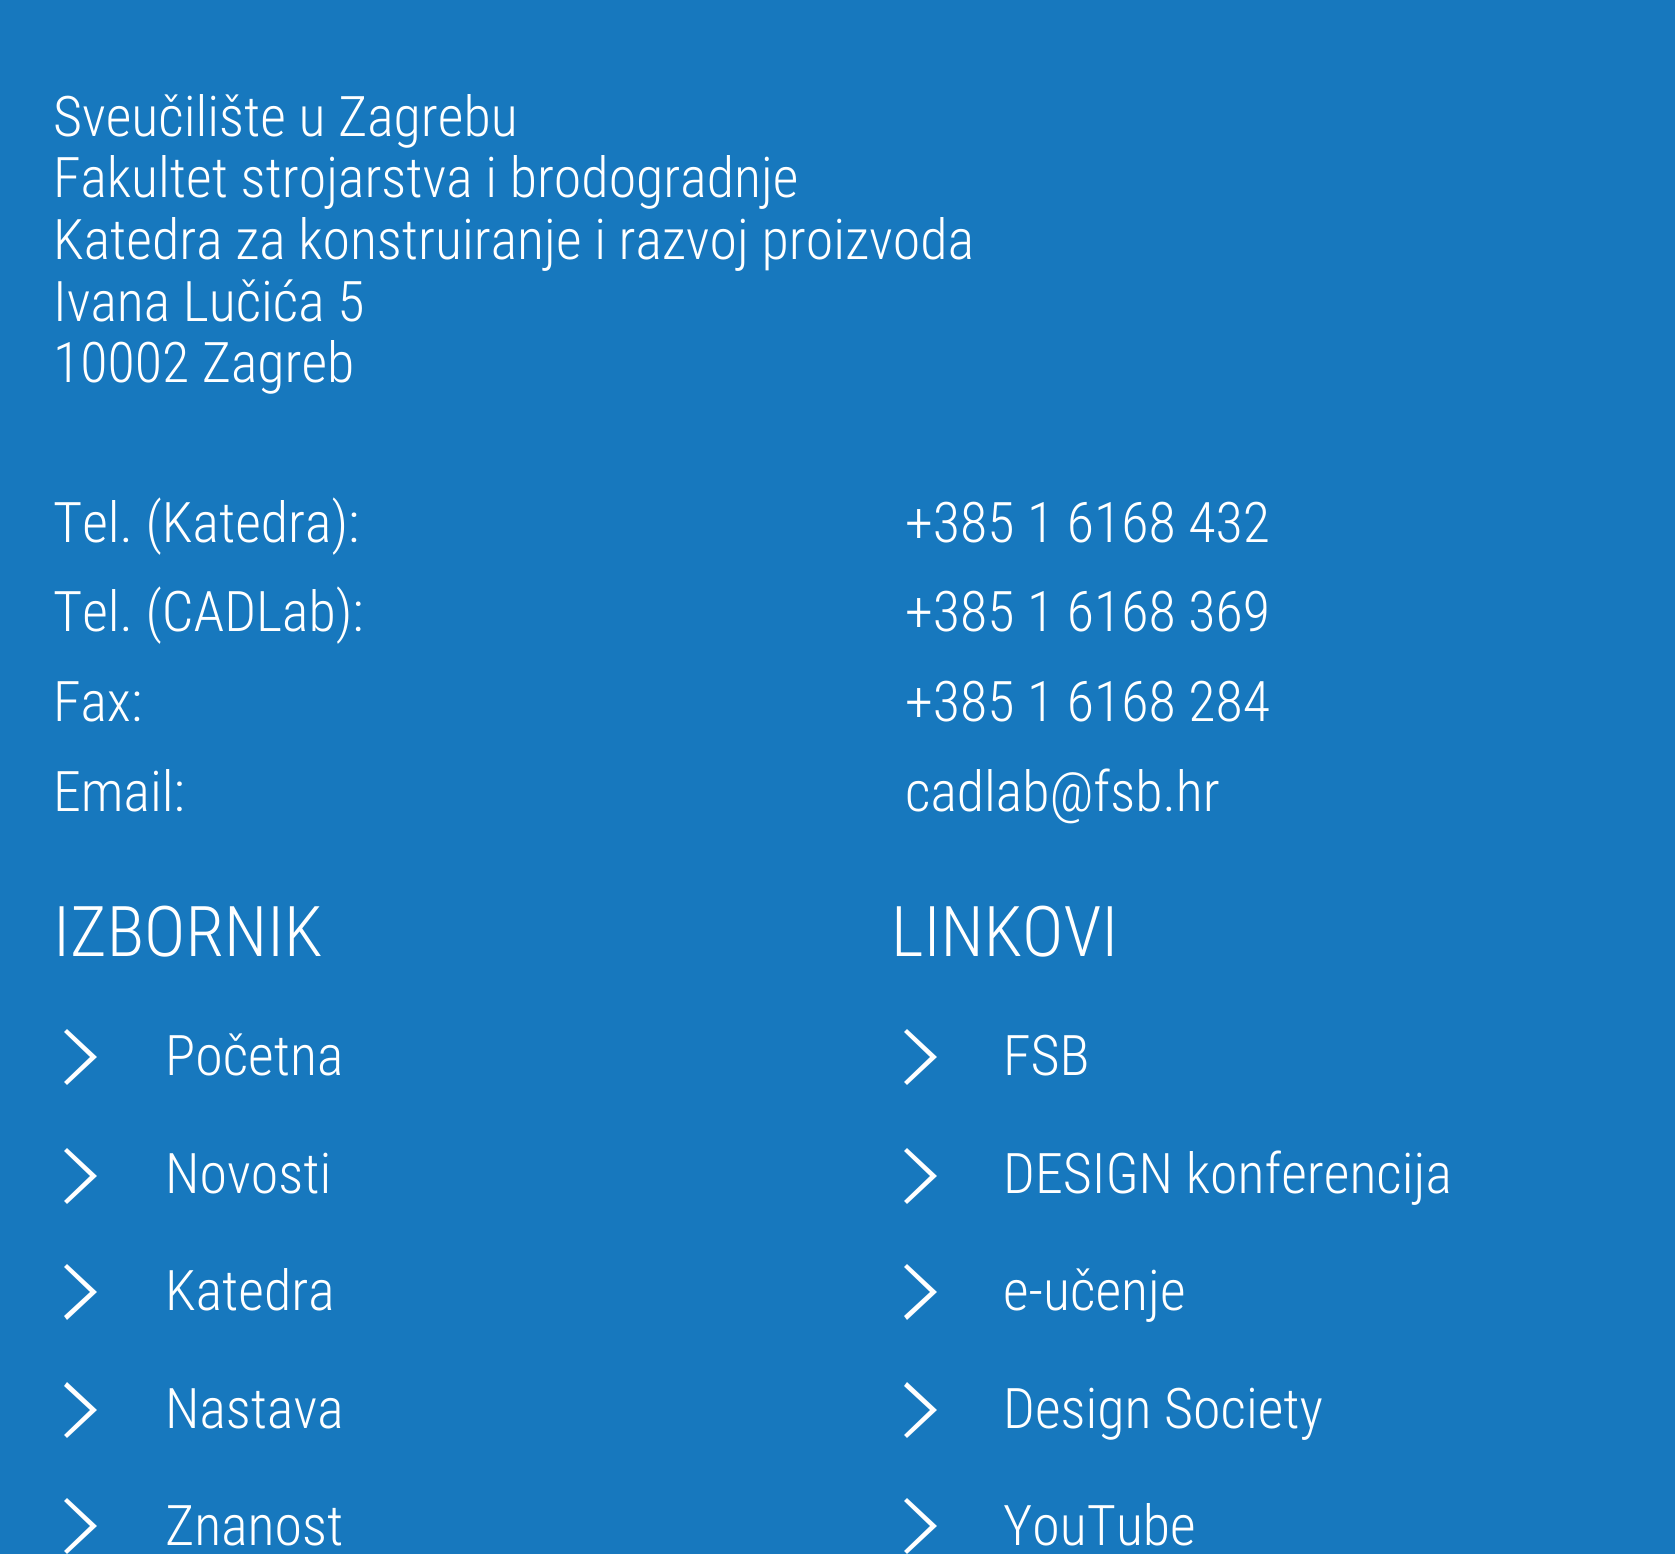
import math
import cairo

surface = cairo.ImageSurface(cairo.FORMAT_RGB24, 1675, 1554)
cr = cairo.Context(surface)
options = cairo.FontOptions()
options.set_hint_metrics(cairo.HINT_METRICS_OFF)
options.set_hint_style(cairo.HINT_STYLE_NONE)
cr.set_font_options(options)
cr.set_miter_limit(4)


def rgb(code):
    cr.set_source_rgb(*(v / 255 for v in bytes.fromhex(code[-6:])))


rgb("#1778be")
cr.paint()
rgb("#ffffff")
cr.new_path()
cr.move_to(64, 1032)
cr.line_to(67, 1029)
cr.line_to(97, 1057)
cr.line_to(67, 1085)
cr.line_to(64, 1082)
cr.line_to(90, 1057)
cr.close_path()
cr.fill()
cr.new_path()
cr.move_to(64, 1151)
cr.line_to(67, 1148)
cr.line_to(97, 1176)
cr.line_to(67, 1204)
cr.line_to(64, 1201)
cr.line_to(90, 1176)
cr.close_path()
cr.fill()
cr.new_path()
cr.move_to(64, 1267)
cr.line_to(67, 1264)
cr.line_to(97, 1292)
cr.line_to(67, 1320)
cr.line_to(64, 1316)
cr.line_to(90, 1292)
cr.close_path()
cr.fill()
cr.new_path()
cr.move_to(64, 1386)
cr.line_to(67, 1382)
cr.line_to(97, 1410)
cr.line_to(67, 1438)
cr.line_to(64, 1435)
cr.line_to(90, 1410)
cr.close_path()
cr.fill()
cr.new_path()
cr.move_to(64, 1501)
cr.line_to(67, 1498)
cr.line_to(97, 1526)
cr.line_to(67, 1554)
cr.line_to(64, 1551)
cr.line_to(90, 1526)
cr.close_path()
cr.fill()
cr.new_path()
cr.move_to(904, 1032)
cr.line_to(907, 1029)
cr.line_to(937, 1057)
cr.line_to(907, 1085)
cr.line_to(904, 1082)
cr.line_to(930, 1057)
cr.close_path()
cr.fill()
cr.new_path()
cr.move_to(904, 1151)
cr.line_to(907, 1148)
cr.line_to(937, 1176)
cr.line_to(907, 1204)
cr.line_to(904, 1201)
cr.line_to(930, 1176)
cr.close_path()
cr.fill()
cr.new_path()
cr.move_to(904, 1267)
cr.line_to(907, 1264)
cr.line_to(937, 1292)
cr.line_to(907, 1320)
cr.line_to(904, 1316)
cr.line_to(930, 1292)
cr.close_path()
cr.fill()
cr.new_path()
cr.move_to(904, 1386)
cr.line_to(907, 1382)
cr.line_to(937, 1410)
cr.line_to(907, 1438)
cr.line_to(904, 1435)
cr.line_to(930, 1410)
cr.close_path()
cr.fill()
cr.new_path()
cr.move_to(904, 1501)
cr.line_to(907, 1498)
cr.line_to(937, 1526)
cr.line_to(907, 1554)
cr.line_to(904, 1551)
cr.line_to(930, 1526)
cr.close_path()
cr.fill()
cr.select_font_face("Roboto Condensed Light")
cr.set_font_size(56)
for x, y, s in [
    (53, 136, "Sveučilište u Zagrebu"),
    (53, 197, "Fakultet strojarstva i brodogradnje"),
    (53, 259, "Katedra za konstruiranje i razvoj proizvoda"),
    (53, 321, "Ivana Lučića 5"),
    (53, 382, "10002 Zagreb"),
    (53, 542, "Tel. (Katedra):"),
    (905, 542, "+385 1 6168 432"),
    (53, 631, "Tel. (CADLab):"),
    (905, 631, "+385 1 6168 369"),
    (53, 721, "Fax:"),
    (905, 721, "+385 1 6168 284"),
    (53, 811, "Email:"),
    (905, 811, "cadlab@fsb.hr"),
]:
    cr.move_to(x, y)
    cr.show_text(s)
cr.set_font_size(70)
cr.move_to(53, 956)
cr.show_text("IZBORNIK")
cr.set_font_size(56)
for x, y, s in [
    (165, 1075, "Početna"),
    (165, 1193, "Novosti"),
    (165, 1310, "Katedra"),
    (165, 1428, "Nastava"),
    (165, 1545, "Znanost"),
]:
    cr.move_to(x, y)
    cr.show_text(s)
cr.set_font_size(70)
cr.move_to(891, 956)
cr.show_text("LINKOVI")
cr.set_font_size(56)
for x, y, s in [
    (1003, 1075, "FSB"),
    (1003, 1193, "DESIGN konferencija"),
    (1003, 1310, "e-učenje"),
    (1003, 1428, "Design Society"),
    (1003, 1545, "YouTube"),
]:
    cr.move_to(x, y)
    cr.show_text(s)
surface.write_to_png("page.png")
